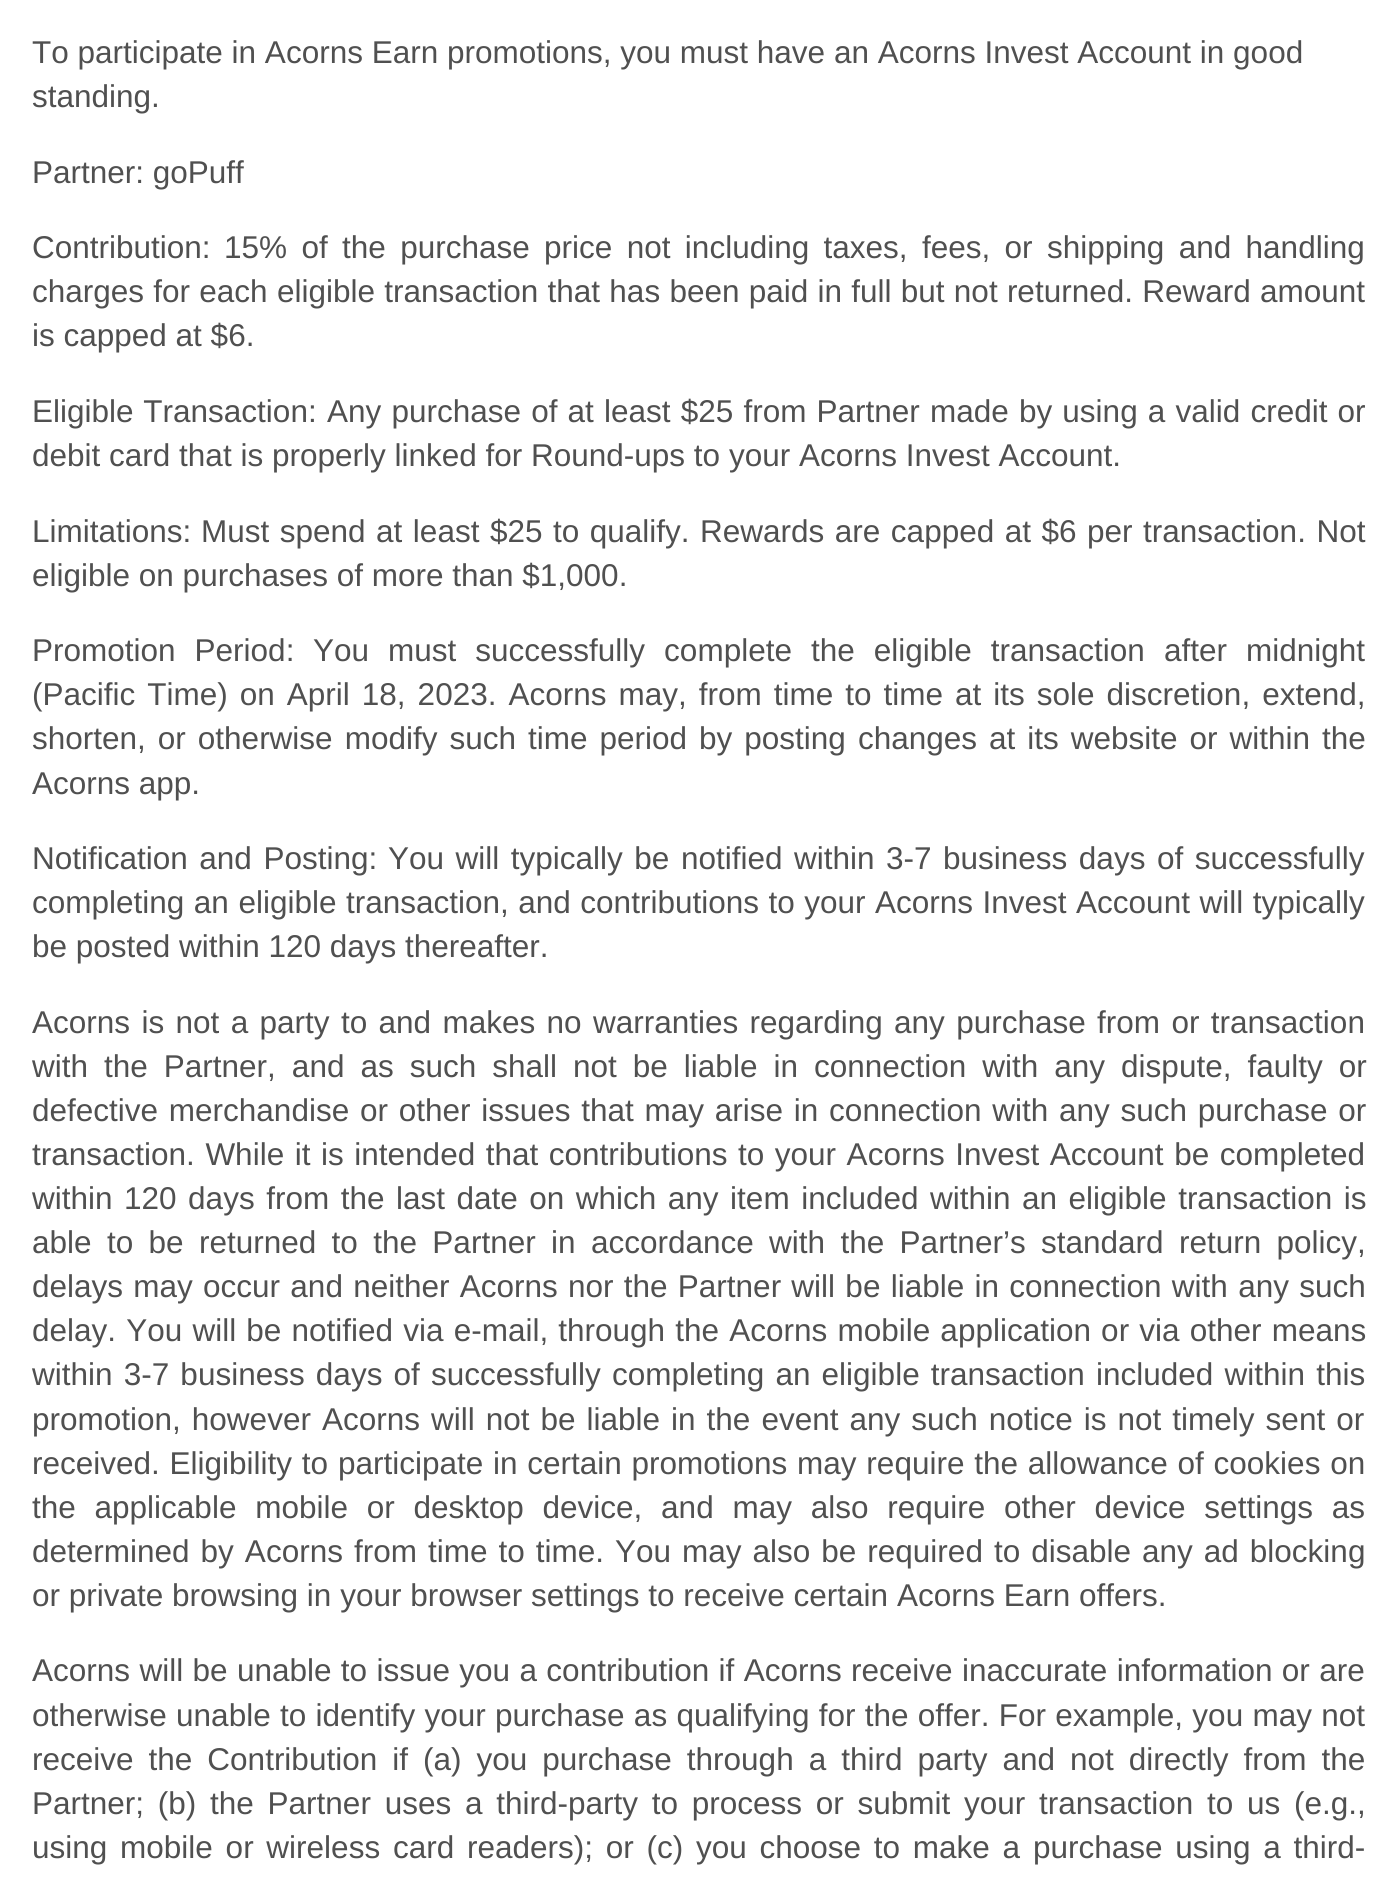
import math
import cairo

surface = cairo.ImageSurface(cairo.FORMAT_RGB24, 1395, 1878)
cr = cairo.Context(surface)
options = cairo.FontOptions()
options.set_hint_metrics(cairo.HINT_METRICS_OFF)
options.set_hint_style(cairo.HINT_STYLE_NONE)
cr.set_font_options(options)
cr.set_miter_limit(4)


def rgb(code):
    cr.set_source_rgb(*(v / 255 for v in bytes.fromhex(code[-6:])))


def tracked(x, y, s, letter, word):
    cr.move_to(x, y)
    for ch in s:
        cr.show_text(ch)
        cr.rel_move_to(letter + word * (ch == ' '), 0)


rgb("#ffffff")
cr.paint()
cr.select_font_face("Liberation Sans")
cr.set_font_size(31.5)
rgb("#505050")
for x, y, s in [
    (32, 63, "To participate in Acorns Earn promotions, you must have an Acorns Invest Account in good"),
    (32, 107, "standing."),
    (32, 183, "Partner: goPuff"),
    (32, 258, "Contribution:"),
]:
    cr.move_to(x, y)
    cr.show_text(s)
tracked(224, 258, "15% of the purchase price not including taxes, fees, or shipping and handling", 0, 5.6)
tracked(32, 302, "charges for each eligible transaction that has been paid in full but not returned. Reward amount", 0, 0.5)
cr.move_to(32, 346)
cr.show_text("is capped at $6.")
tracked(32, 422, "Eligible Transaction:", 0, 1)
tracked(327, 422, "Any purchase of at least $25 from Partner made by using a valid credit or", 0, 1.4)
cr.move_to(32, 466)
cr.show_text("debit card that is properly linked for Round-ups to your Acorns Invest Account.")
cr.move_to(32, 542)
cr.show_text("Limitations:")
tracked(201, 542, "Must spend at least $25 to qualify. Rewards are capped at $6 per transaction. Not", 0, 1.75)
cr.move_to(32, 586)
cr.show_text("eligible on purchases of more than $1,000.")
tracked(32, 661, "Promotion Period:", 0, 10.25)
tracked(313, 661, "You must successfully complete the eligible transaction after midnight", 0, 10.25)
tracked(32, 705, "(Pacific Time) on April 18, 2023. Acorns may, from time to time at its sole discretion, extend,", 0, 3.25)
tracked(32, 749, "shorten, or otherwise modify such time period by posting changes at its website or within the", 0, 3.25)
cr.move_to(32, 794)
cr.show_text("Acorns app.")
tracked(32, 869, "Notification and Posting:", 0, 2.75)
tracked(388, 869, "You will typically be notified within 3-7 business days of successfully", 0, 2.75)
tracked(32, 913, "completing an eligible transaction, and contributions to your Acorns Invest Account will typically", 0, 0.75)
cr.move_to(32, 957)
cr.show_text("be posted within 120 days thereafter.")
tracked(32, 1033, "Acorns is not a party to and makes no warranties regarding any purchase from or transaction", 0, 2.6)
tracked(32, 1077, "with the Partner, and as such shall not be liable in connection with any dispute, faulty or", 0, 7.25)
tracked(32, 1121, "defective merchandise or other issues that may arise in connection with any such purchase or", 0, 2)
tracked(32, 1165, "transaction. While it is intended that contributions to your Acorns Invest Account be completed", 0, 1.8)
tracked(32, 1209, "within 120 days from the last date on which any item included within an eligible transaction is", 0, 2.75)
tracked(32, 1253, "able to be returned to the Partner in accordance with the Partner’s standard return policy,", 0, 6.6)
tracked(32, 1297, "delays may occur and neither Acorns nor the Partner will be liable in connection with any such", 0, 1.5)
tracked(32, 1341, "delay. You will be notified via e-mail, through the Acorns mobile application or via other means", 0, 1.4)
tracked(32, 1385, "within 3-7 business days of successfully completing an eligible transaction included within this", 0, 2.4)
tracked(32, 1430, "promotion, however Acorns will not be liable in the event any such notice is not timely sent or", 0, 2.25)
tracked(32, 1474, "received. Eligibility to participate in certain promotions may require the allowance of cookies on", 0, 1)
tracked(32, 1518, "the applicable mobile or desktop device, and may also require other device settings as", 0, 10)
tracked(32, 1562, "determined by Acorns from time to time. You may also be required to disable any ad blocking", 0, 2.25)
cr.move_to(32, 1606)
cr.show_text("or private browsing in your browser settings to receive certain Acorns Earn offers.")
tracked(32, 1681, "Acorns will be unable to issue you a contribution if Acorns receive inaccurate information or are", 0, 0.6)
tracked(32, 1726, "otherwise unable to identify your purchase as qualifying for the offer. For example, you may not", 0, 0.5)
tracked(32, 1770, "receive the Contribution if (a) you purchase through a third party and not directly from the", 0, 6.25)
tracked(32, 1814, "Partner; (b) the Partner uses a third-party to process or submit your transaction to us (e.g.,", 0, 5)
tracked(32, 1858, "using mobile or wireless card readers); or (c) you choose to make a purchase using a third-", 0, 4)
surface.write_to_png("page.png")
